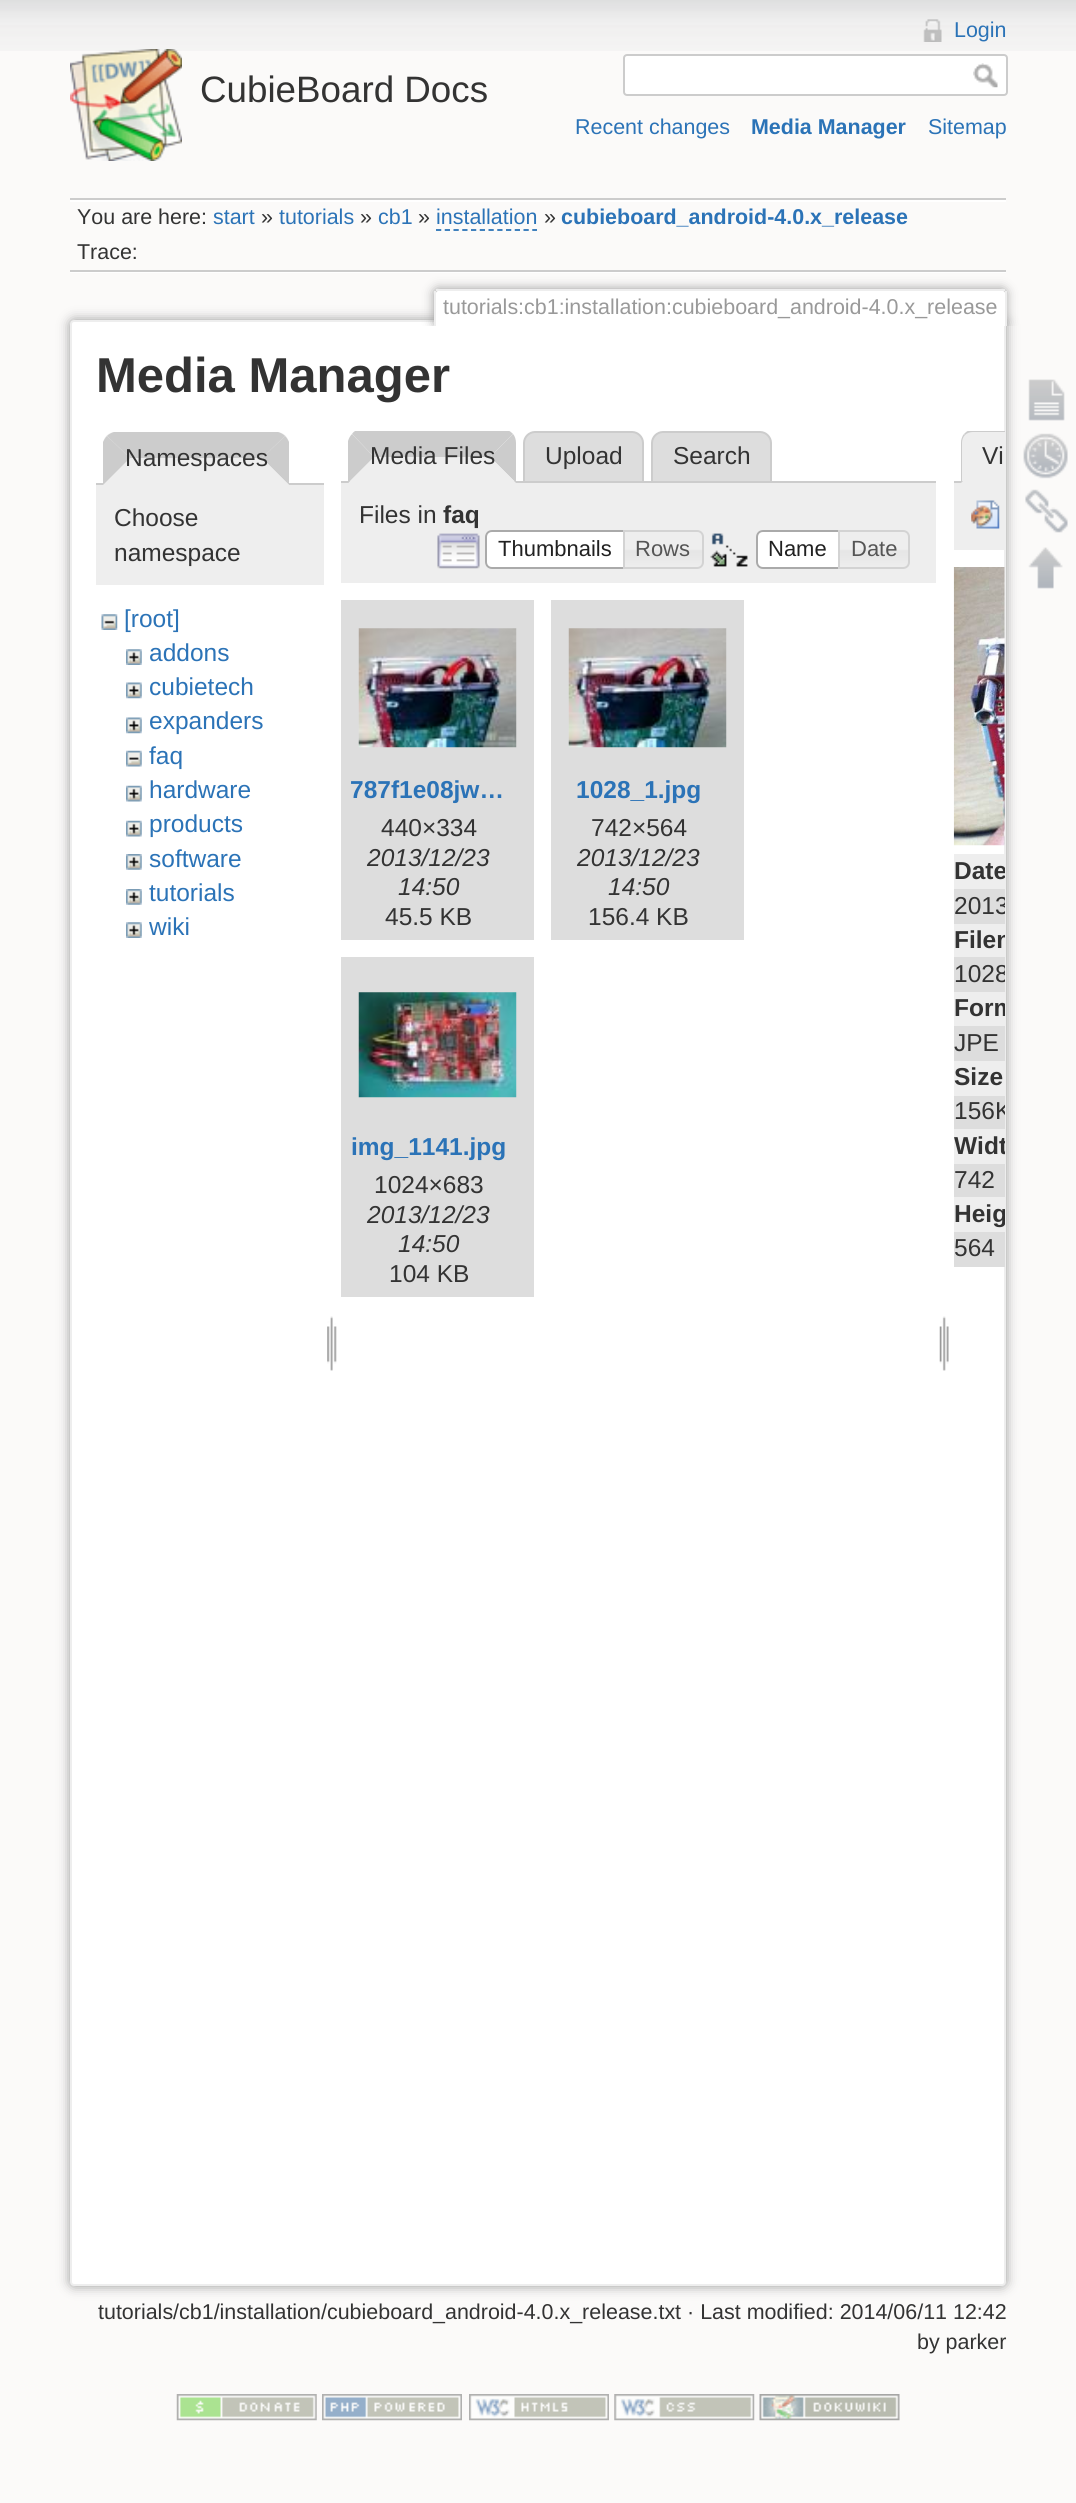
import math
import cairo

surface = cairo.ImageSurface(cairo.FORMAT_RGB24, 1076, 2503)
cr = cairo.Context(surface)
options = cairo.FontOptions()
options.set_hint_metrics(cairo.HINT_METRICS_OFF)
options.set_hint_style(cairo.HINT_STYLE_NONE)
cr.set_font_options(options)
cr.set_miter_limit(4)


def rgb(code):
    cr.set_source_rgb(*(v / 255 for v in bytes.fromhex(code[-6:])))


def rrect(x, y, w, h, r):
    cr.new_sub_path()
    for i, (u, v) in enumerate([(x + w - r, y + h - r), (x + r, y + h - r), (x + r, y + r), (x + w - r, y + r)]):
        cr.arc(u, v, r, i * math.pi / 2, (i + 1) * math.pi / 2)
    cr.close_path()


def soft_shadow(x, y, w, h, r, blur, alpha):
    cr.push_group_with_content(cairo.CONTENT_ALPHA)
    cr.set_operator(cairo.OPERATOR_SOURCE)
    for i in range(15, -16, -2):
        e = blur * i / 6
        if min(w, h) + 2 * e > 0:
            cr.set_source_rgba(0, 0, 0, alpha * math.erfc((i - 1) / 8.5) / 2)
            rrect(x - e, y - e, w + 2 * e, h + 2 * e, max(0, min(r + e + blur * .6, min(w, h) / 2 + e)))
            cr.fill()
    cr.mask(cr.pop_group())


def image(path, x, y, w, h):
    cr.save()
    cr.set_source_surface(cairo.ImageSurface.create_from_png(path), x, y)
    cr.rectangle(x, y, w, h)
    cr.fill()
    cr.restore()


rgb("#fbfaf9")
cr.paint()
image("img/1.png", 0, 0, 1076, 51)
image("img/2.png", 70, 49, 112, 112)
image("img/3.png", 923, 19, 19, 23)
rgb("#ffffff")
rrect(624, 55, 383, 40, 3)
cr.fill_preserve()
rgb("#cccccc")
cr.stroke()
image("img/4.png", 973, 63, 25, 25)
for x, y, w, h, color in [
    (70, 198, 936, 2, "#cccccc"),
    (70, 272, 936, 1, "#ffffff"),
    (70, 200, 936, 2, "#ffffff"),
]:
    rgb(color)
    cr.rectangle(x, y, w, h)
    cr.fill()
cr.new_path()
cr.move_to(436, 230)
cr.line_to(537, 230)
rgb("#2b73b7")
cr.set_line_width(1.8)
cr.set_dash([5.25, 3.5])
cr.stroke()
rgb("#cccccc")
cr.rectangle(70, 270, 936, 2)
cr.fill()
rgb("#999999")
soft_shadow(70, 320, 936, 1966, 4, 6, 1)
rgb("#ffffff")
rrect(71, 321, 934, 1964, 3)
cr.fill_preserve()
rgb("#eeeeee")
cr.set_line_width(2)
cr.set_dash([])
cr.stroke()
cr.save()
cr.rectangle(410, 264, 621, 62)
cr.clip()
rgb("#999999")
soft_shadow(434, 289, 572, 37, 4, 5.5, 1)
cr.restore()
rgb("#ffffff")
cr.new_path()
cr.move_to(438, 291)
cr.line_to(1003, 291)
cr.curve_to(1004, 291, 1005, 292, 1005, 293)
cr.line_to(1005, 326)
cr.line_to(436, 326)
cr.line_to(436, 293)
cr.curve_to(436, 292, 437, 291, 438, 291)
cr.close_path()
cr.fill()
for x, y, w, h, color in [
    (436, 289, 569, 2, "#eeeeee"),
    (1005, 291, 2, 35, "#eeeeee"),
    (434, 291, 2, 35, "#eeeeee"),
    (96, 483, 228, 2, "#cccccc"),
]:
    rgb(color)
    cr.rectangle(x, y, w, h)
    cr.fill()
rgb("#eeeeee")
cr.new_path()
cr.move_to(115, 432)
cr.line_to(277, 432)
cr.curve_to(283.5, 432, 289, 437.5, 289, 444)
cr.line_to(289, 485)
cr.line_to(103, 485)
cr.line_to(103, 444)
cr.curve_to(103, 437.5, 108.5, 432, 115, 432)
cr.close_path()
cr.fill()
rgb("#cccccc")
cr.new_path()
cr.move_to(278, 432)
cr.line_to(114, 432)
cr.curve_to(111, 433, 109, 434, 107, 436)
cr.line_to(130, 458)
cr.line_to(262, 458)
cr.line_to(285, 436)
cr.curve_to(283, 434, 281, 433, 278, 432)
cr.close_path()
cr.fill()
cr.new_path()
cr.move_to(285, 436)
cr.line_to(262, 458)
cr.line_to(289, 485)
cr.line_to(289, 442)
cr.curve_to(288, 440, 287, 438, 285, 436)
cr.close_path()
cr.fill()
rgb("#eeeeee")
cr.new_path()
cr.move_to(289, 485)
cr.line_to(262, 458)
cr.line_to(130, 458)
cr.line_to(103, 485)
cr.close_path()
cr.fill()
rgb("#cccccc")
cr.new_path()
cr.move_to(103, 485)
cr.line_to(130, 458)
cr.line_to(107, 436)
cr.curve_to(105, 438, 104, 440, 103, 442)
cr.close_path()
cr.fill()
rgb("#eeeeee")
cr.rectangle(96, 485, 228, 100)
cr.fill()
image("img/5.png", 101, 614, 17, 16)
image("img/6.png", 126, 649, 16, 16)
image("img/7.png", 126, 682, 16, 17)
image("img/7.png", 126, 717, 16, 17)
image("img/8.png", 126, 750, 16, 17)
image("img/9.png", 126, 785, 16, 17)
image("img/9.png", 126, 820, 16, 17)
image("img/10.png", 126, 854, 16, 16)
image("img/10.png", 126, 889, 16, 16)
image("img/6.png", 126, 922, 16, 16)
image("img/11.png", 327, 1316, 10, 55)
cr.save()
cr.rectangle(341, 431, 595, 52)
cr.clip()
rgb("#cccccc")
cr.new_path()
cr.move_to(507, 430)
cr.line_to(357, 430)
cr.curve_to(355, 431, 353, 432, 352, 434)
cr.line_to(374, 457)
cr.line_to(490, 457)
cr.line_to(513, 434)
cr.curve_to(511, 432, 510, 431, 507, 430)
cr.close_path()
cr.fill()
cr.restore()
rgb("#dddddd")
cr.new_path()
cr.move_to(535, 432)
cr.line_to(632, 432)
cr.curve_to(638, 432, 643, 437, 643, 443)
cr.line_to(643, 482)
cr.line_to(524, 482)
cr.line_to(524, 443)
cr.curve_to(524, 437, 529, 432, 535, 432)
cr.close_path()
cr.fill_preserve()
rgb("#cccccc")
cr.stroke()
rgb("#dddddd")
cr.new_path()
cr.move_to(663, 432)
cr.line_to(760, 432)
cr.curve_to(766, 432, 771, 437, 771, 443)
cr.line_to(771, 482)
cr.line_to(652, 482)
cr.line_to(652, 443)
cr.curve_to(652, 437, 657, 432, 663, 432)
cr.close_path()
cr.fill_preserve()
rgb("#cccccc")
cr.stroke()
cr.rectangle(341, 481, 595, 2)
cr.fill()
cr.new_path()
cr.move_to(513, 434)
cr.line_to(490, 457)
cr.line_to(516, 483)
cr.line_to(516, 443)
cr.curve_to(516, 440, 515, 436, 513, 434)
cr.close_path()
cr.fill()
rgb("#eeeeee")
cr.new_path()
cr.move_to(516, 483)
cr.line_to(490, 457)
cr.line_to(374, 457)
cr.line_to(348, 483)
cr.close_path()
cr.fill()
rgb("#cccccc")
cr.new_path()
cr.move_to(348, 483)
cr.line_to(374, 457)
cr.line_to(352, 434)
cr.curve_to(350, 436, 349, 438, 348, 441)
cr.close_path()
cr.fill()
rgb("#eeeeee")
cr.rectangle(341, 483, 595, 100)
cr.fill()
image("img/12.png", 437, 533, 43, 36)
rgb("#ffffff")
cr.new_path()
cr.move_to(492, 530)
cr.line_to(625, 530)
cr.line_to(625, 569)
cr.line_to(492, 569)
cr.curve_to(488, 569, 485, 566, 485, 562)
cr.line_to(485, 537)
cr.curve_to(485, 533, 488, 530, 492, 530)
cr.close_path()
cr.fill()
image("img/13.png", 485, 532, 2, 33)
cr.new_path()
cr.move_to(492, 531)
cr.line_to(624, 531)
cr.line_to(624, 568)
cr.line_to(492, 568)
cr.curve_to(488.5, 568, 486, 565.5, 486, 562)
cr.line_to(486, 537)
cr.curve_to(486, 533.5, 488.5, 531, 492, 531)
cr.close_path()
rgb("#aaaaaa")
cr.stroke()
image("img/14.png", 625, 530, 78, 39)
cr.new_path()
cr.move_to(624, 531)
cr.line_to(697, 531)
cr.curve_to(700.5, 531, 703, 533.5, 703, 537)
cr.line_to(703, 562)
cr.curve_to(703, 565.5, 700.5, 568, 697, 568)
cr.line_to(624, 568)
cr.close_path()
rgb("#d3d3d3")
cr.stroke()
image("img/15.png", 710, 533, 38, 34)
rgb("#ffffff")
cr.new_path()
cr.move_to(763, 530)
cr.line_to(840, 530)
cr.line_to(840, 569)
cr.line_to(763, 569)
cr.curve_to(759, 569, 756, 566, 756, 562)
cr.line_to(756, 537)
cr.curve_to(756, 533, 759, 530, 763, 530)
cr.close_path()
cr.fill()
rgb("#f8f8f8")
cr.rectangle(757, 532, 1, 1)
cr.fill()
cr.new_path()
cr.move_to(763, 531)
cr.line_to(839, 531)
cr.line_to(839, 568)
cr.line_to(763, 568)
cr.curve_to(759.5, 568, 757, 565.5, 757, 562)
cr.line_to(757, 537)
cr.curve_to(757, 533.5, 759.5, 531, 763, 531)
cr.close_path()
rgb("#aaaaaa")
cr.stroke()
image("img/16.png", 840, 530, 70, 39)
cr.new_path()
cr.move_to(839, 531)
cr.line_to(903, 531)
cr.curve_to(906.5, 531, 909, 533.5, 909, 537)
cr.line_to(909, 562)
cr.curve_to(909, 565.5, 906.5, 568, 903, 568)
cr.line_to(839, 568)
cr.close_path()
rgb("#d3d3d3")
cr.stroke()
rgb("#dddddd")
cr.rectangle(341, 600, 193, 340)
cr.fill()
image("img/17.png", 358, 628, 159, 120)
cr.rectangle(551, 600, 193, 340)
cr.fill()
image("img/18.png", 568, 628, 159, 120)
cr.rectangle(341, 957, 193, 340)
cr.fill()
image("img/19.png", 358, 992, 159, 106)
image("img/20.png", 939, 1316, 10, 55)
rgb("#eeeeee")
cr.new_path()
cr.move_to(973, 431)
cr.line_to(1005, 431)
cr.line_to(1005, 483)
cr.line_to(961, 483)
cr.line_to(961, 443)
cr.curve_to(961, 436.5, 966.5, 431, 973, 431)
cr.close_path()
cr.fill()
cr.save()
cr.rectangle(954, 431, 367, 52)
cr.clip()
rgb("#cccccc")
cr.new_path()
cr.move_to(1005, 430)
cr.line_to(970, 430)
cr.curve_to(967, 431, 966, 432, 964, 434)
cr.line_to(965, 435)
cr.curve_to(967, 433, 970, 432, 973, 432)
cr.line_to(1005, 432)
cr.close_path()
cr.fill()
cr.restore()
rgb("#cccccc")
cr.new_path()
cr.move_to(965, 435)
cr.line_to(964, 434)
cr.curve_to(962, 436, 961, 440, 961, 443)
cr.line_to(961, 483)
cr.line_to(963, 481)
cr.line_to(962, 481)
cr.line_to(962, 443)
cr.curve_to(962, 440, 963, 437, 965, 435)
cr.close_path()
cr.fill()
cr.rectangle(954, 481, 7, 2)
cr.fill()
rgb("#eeeeee")
cr.rectangle(954, 483, 50, 67)
cr.fill()
image("img/21.png", 971, 500, 29, 29)
image("img/22.png", 953, 567, 52, 279)
for x, y, w, h, color in [
    (954, 854, 50, 35, "#eeeeee"),
    (954, 889, 51, 35, "#dddddd"),
    (954, 924, 50, 33, "#eeeeee"),
    (954, 957, 51, 35, "#dddddd"),
    (954, 992, 50, 34, "#eeeeee"),
    (954, 1026, 51, 35, "#dddddd"),
    (954, 1061, 50, 35, "#eeeeee"),
    (954, 1096, 51, 33, "#dddddd"),
    (954, 1129, 50, 35, "#eeeeee"),
    (954, 1164, 51, 33, "#dddddd"),
    (954, 1197, 50, 35, "#eeeeee"),
    (954, 1232, 51, 35, "#dddddd"),
]:
    rgb(color)
    cr.rectangle(x, y, w, h)
    cr.fill()
image("img/23.png", 1028, 379, 37, 42)
image("img/24.png", 1023, 433, 45, 46)
image("img/25.png", 1025, 489, 43, 44)
image("img/26.png", 1028, 547, 35, 42)
image("img/27.png", 176, 2394, 141, 27)
image("img/28.png", 322, 2394, 140, 27)
image("img/29.png", 469, 2394, 140, 27)
image("img/30.png", 614, 2394, 141, 27)
image("img/31.png", 759, 2394, 141, 27)
cr.select_font_face("Liberation Sans")
cr.set_font_size(36.75)
rgb("#333333")
cr.move_to(200, 102)
cr.show_text("CubieBoard Docs")
cr.set_font_size(21.45)
rgb("#2b73b7")
cr.move_to(954, 37)
cr.show_text("Login")
cr.move_to(575, 134)
cr.show_text("Recent changes")
cr.select_font_face("Liberation Sans", cairo.FONT_SLANT_NORMAL, cairo.FONT_WEIGHT_BOLD)
cr.move_to(751, 134)
cr.show_text("Media Manager")
cr.select_font_face("Liberation Sans")
cr.move_to(928, 134)
cr.show_text("Sitemap")
rgb("#333333")
cr.move_to(77, 224)
cr.show_text("You are here:")
rgb("#2b73b7")
cr.move_to(213, 224)
cr.show_text("start")
rgb("#333333")
cr.move_to(261, 224)
cr.show_text("»")
rgb("#2b73b7")
cr.move_to(279, 224)
cr.show_text("tutorials")
rgb("#333333")
cr.move_to(360, 224)
cr.show_text("»")
rgb("#2b73b7")
cr.move_to(378, 224)
cr.show_text("cb1")
rgb("#333333")
cr.move_to(418, 224)
cr.show_text("»")
rgb("#2b73b7")
cr.move_to(436, 224)
cr.show_text("installation")
rgb("#333333")
cr.move_to(544, 224)
cr.show_text("»")
cr.select_font_face("Liberation Sans", cairo.FONT_SLANT_NORMAL, cairo.FONT_WEIGHT_BOLD)
rgb("#2b73b7")
cr.move_to(561, 224)
cr.show_text("cubieboard_android-4.0.x_release")
cr.select_font_face("Liberation Sans")
rgb("#333333")
cr.move_to(77, 259)
cr.show_text("Trace:")
rgb("#999999")
cr.move_to(443, 314)
cr.show_text("tutorials:cb1:installation:cubieboard_android-4.0.x_release")
cr.select_font_face("Liberation Sans", cairo.FONT_SLANT_NORMAL, cairo.FONT_WEIGHT_BOLD)
cr.set_font_size(49)
rgb("#333333")
cr.move_to(96, 392)
cr.show_text("Media Manager")
cr.select_font_face("Liberation Sans")
cr.set_font_size(24.5)
for x, y, s in [
    (125, 466, "Namespaces"),
    (114, 526, "Choose"),
    (114, 561, "namespace"),
]:
    cr.move_to(x, y)
    cr.show_text(s)
rgb("#2b73b7")
for x, y, s in [
    (124, 627, "[root]"),
    (149, 661, "addons"),
    (149, 695, "cubietech"),
    (149, 729, "expanders"),
    (149, 764, "faq"),
    (149, 798, "hardware"),
    (149, 832, "products"),
    (149, 867, "software"),
    (149, 901, "tutorials"),
    (149, 935, "wiki"),
]:
    cr.move_to(x, y)
    cr.show_text(s)
rgb("#333333")
for x, y, s in [
    (370, 464, "Media Files"),
    (545, 464, "Upload"),
    (673, 464, "Search"),
    (359, 523, "Files in"),
]:
    cr.move_to(x, y)
    cr.show_text(s)
cr.select_font_face("Liberation Sans", cairo.FONT_SLANT_NORMAL, cairo.FONT_WEIGHT_BOLD)
cr.move_to(443, 523)
cr.show_text("faq")
cr.select_font_face("Liberation Sans")
cr.set_font_size(22)
rgb("#212121")
cr.move_to(498, 556)
cr.show_text("Thumbnails")
rgb("#555555")
cr.move_to(635, 556)
cr.show_text("Rows")
rgb("#212121")
cr.move_to(768, 556)
cr.show_text("Name")
rgb("#555555")
cr.move_to(851, 556)
cr.show_text("Date")
cr.select_font_face("Liberation Sans", cairo.FONT_SLANT_NORMAL, cairo.FONT_WEIGHT_BOLD)
cr.set_font_size(24.5)
rgb("#2b73b7")
cr.move_to(350, 798)
cr.show_text("787f1e08jw…")
cr.select_font_face("Liberation Sans")
rgb("#333333")
cr.move_to(381, 836)
cr.show_text("440×334")
cr.select_font_face("Liberation Sans", cairo.FONT_SLANT_ITALIC)
cr.move_to(367, 866)
cr.show_text("2013/12/23")
cr.move_to(398, 895)
cr.show_text("14:50")
cr.select_font_face("Liberation Sans")
cr.move_to(385, 925)
cr.show_text("45.5 KB")
cr.select_font_face("Liberation Sans", cairo.FONT_SLANT_NORMAL, cairo.FONT_WEIGHT_BOLD)
rgb("#2b73b7")
cr.move_to(576, 798)
cr.show_text("1028_1.jpg")
cr.select_font_face("Liberation Sans")
rgb("#333333")
cr.move_to(591, 836)
cr.show_text("742×564")
cr.select_font_face("Liberation Sans", cairo.FONT_SLANT_ITALIC)
cr.move_to(577, 866)
cr.show_text("2013/12/23")
cr.move_to(608, 895)
cr.show_text("14:50")
cr.select_font_face("Liberation Sans")
cr.move_to(588, 925)
cr.show_text("156.4 KB")
cr.select_font_face("Liberation Sans", cairo.FONT_SLANT_NORMAL, cairo.FONT_WEIGHT_BOLD)
rgb("#2b73b7")
cr.move_to(351, 1155)
cr.show_text("img_1141.jpg")
cr.select_font_face("Liberation Sans")
rgb("#333333")
cr.move_to(374, 1193)
cr.show_text("1024×683")
cr.select_font_face("Liberation Sans", cairo.FONT_SLANT_ITALIC)
cr.move_to(367, 1223)
cr.show_text("2013/12/23")
cr.move_to(398, 1252)
cr.show_text("14:50")
cr.select_font_face("Liberation Sans")
cr.move_to(389, 1282)
cr.show_text("104 KB")
cr.move_to(982, 464)
cr.show_text("Vi")
cr.save()
rrect(72, 322, 933, 1962, 2)
cr.clip()
cr.select_font_face("Liberation Sans", cairo.FONT_SLANT_NORMAL, cairo.FONT_WEIGHT_BOLD)
cr.move_to(954, 879)
cr.show_text("Date")
cr.select_font_face("Liberation Sans")
cr.move_to(954, 914)
cr.show_text("2013")
cr.select_font_face("Liberation Sans", cairo.FONT_SLANT_NORMAL, cairo.FONT_WEIGHT_BOLD)
cr.move_to(954, 948)
cr.show_text("Filen")
cr.select_font_face("Liberation Sans")
cr.move_to(954, 982)
cr.show_text("1028")
cr.select_font_face("Liberation Sans", cairo.FONT_SLANT_NORMAL, cairo.FONT_WEIGHT_BOLD)
cr.move_to(954, 1016)
cr.show_text("Form")
cr.restore()
cr.move_to(954, 1051)
cr.show_text("JPE")
cr.select_font_face("Liberation Sans", cairo.FONT_SLANT_NORMAL, cairo.FONT_WEIGHT_BOLD)
cr.move_to(954, 1085)
cr.show_text("Size")
cr.save()
rrect(72, 322, 933, 1962, 2)
cr.clip()
cr.select_font_face("Liberation Sans")
cr.move_to(954, 1119)
cr.show_text("156K")
cr.select_font_face("Liberation Sans", cairo.FONT_SLANT_NORMAL, cairo.FONT_WEIGHT_BOLD)
cr.move_to(954, 1154)
cr.show_text("Widt")
cr.restore()
cr.select_font_face("Liberation Sans")
cr.move_to(954, 1188)
cr.show_text("742")
cr.save()
rrect(72, 322, 933, 1962, 2)
cr.clip()
cr.select_font_face("Liberation Sans", cairo.FONT_SLANT_NORMAL, cairo.FONT_WEIGHT_BOLD)
cr.move_to(954, 1222)
cr.show_text("Heig")
cr.restore()
cr.move_to(954, 1256)
cr.show_text("564")
cr.set_font_size(21.45)
cr.move_to(98, 2319)
cr.show_text("tutorials/cb1/installation/cubieboard_android-4.0.x_release.txt · Last modified: 2014/06/11 12:42")
cr.move_to(917, 2349)
cr.show_text("by parker")
surface.write_to_png("page.png")
